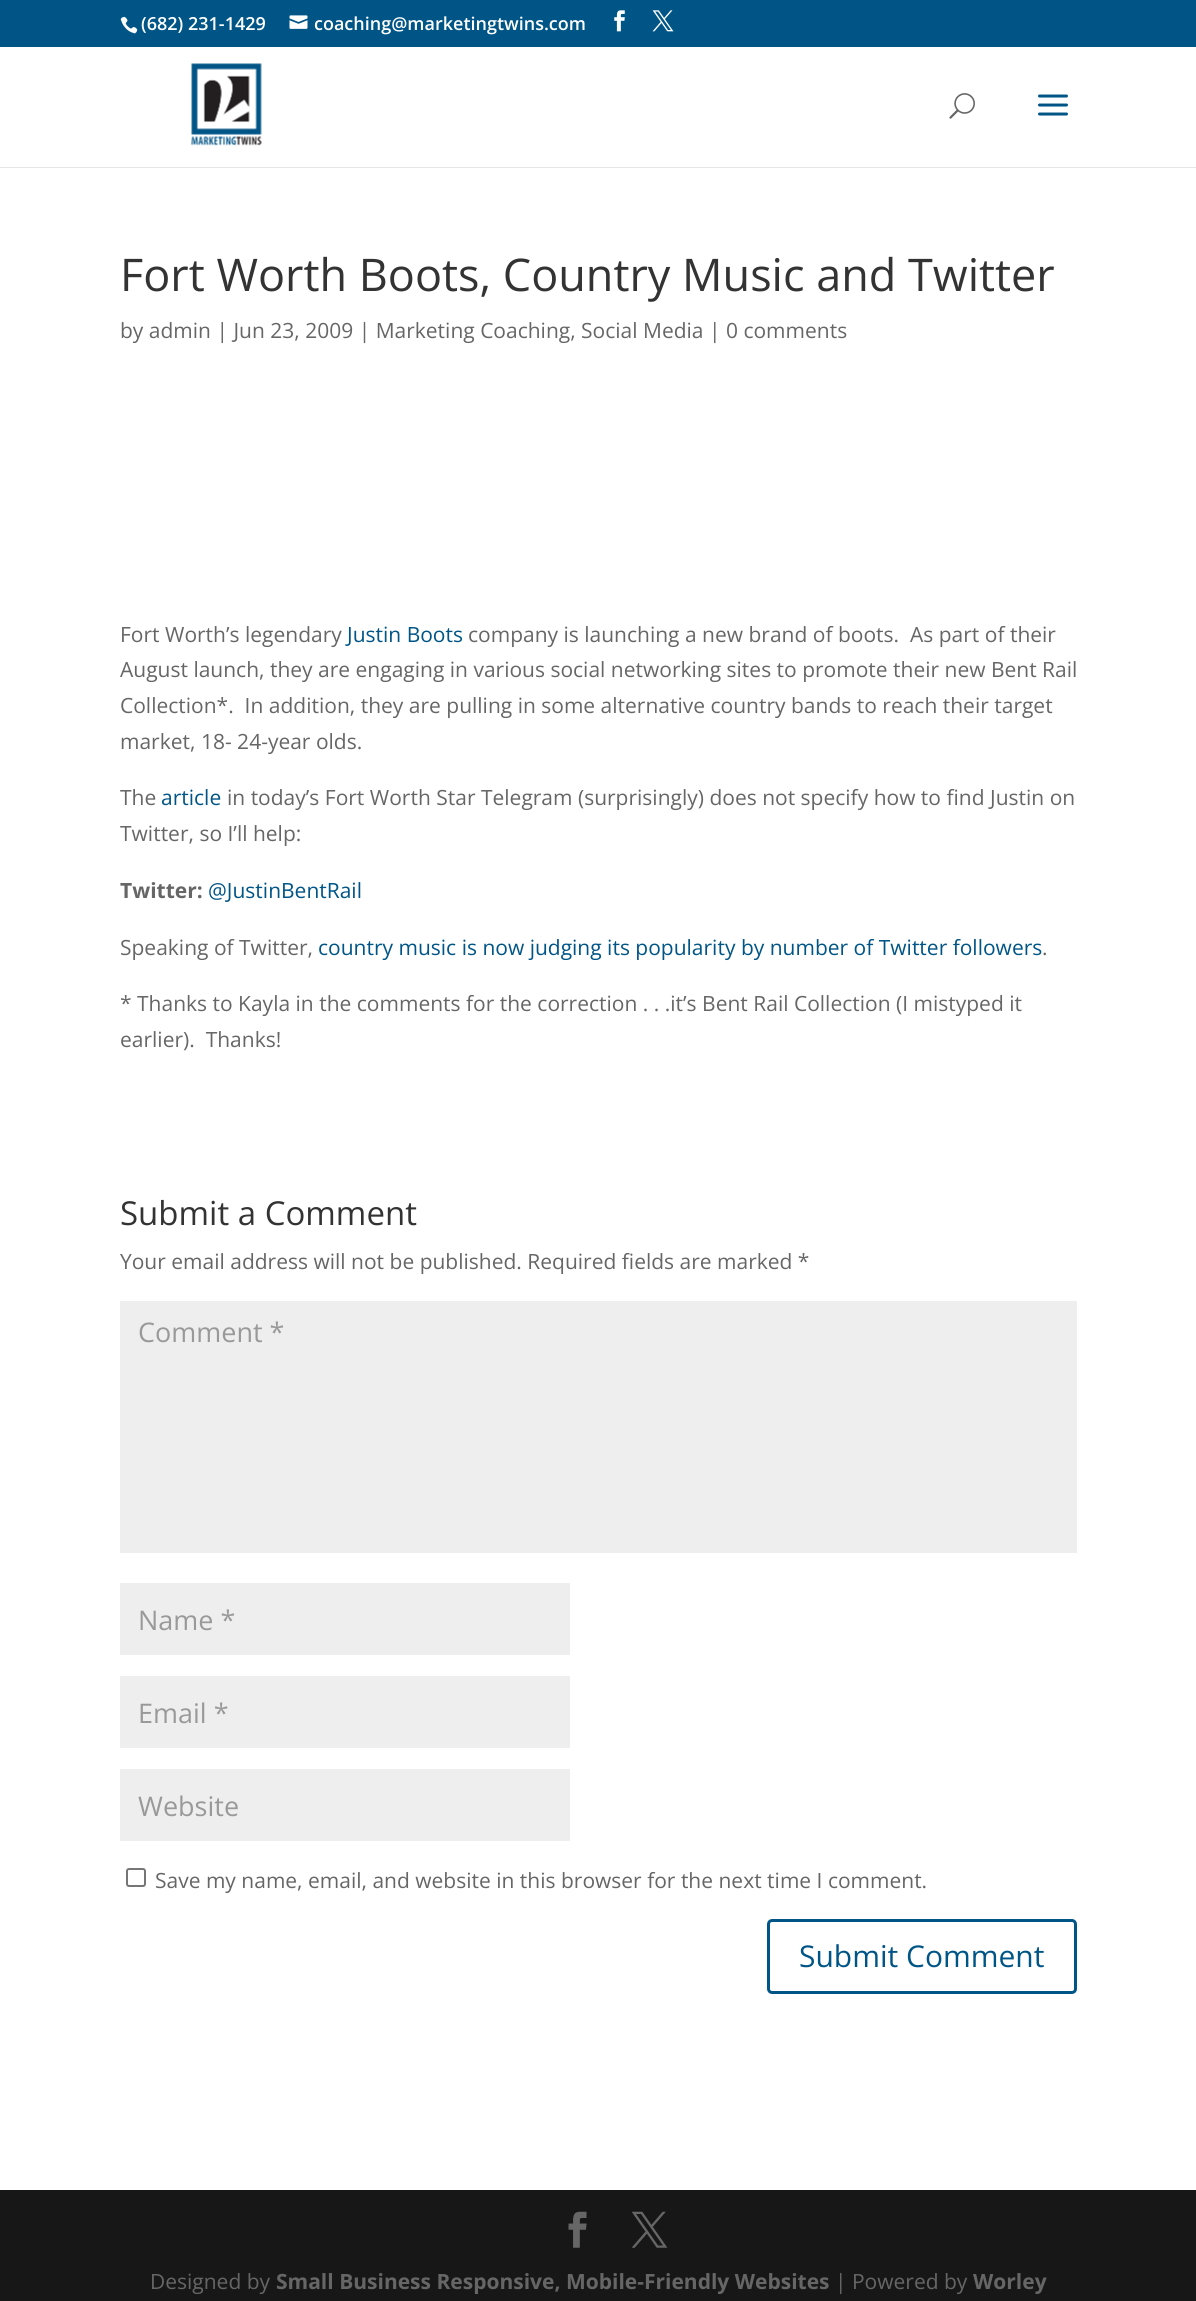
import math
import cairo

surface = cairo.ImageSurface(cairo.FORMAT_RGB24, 1196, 2301)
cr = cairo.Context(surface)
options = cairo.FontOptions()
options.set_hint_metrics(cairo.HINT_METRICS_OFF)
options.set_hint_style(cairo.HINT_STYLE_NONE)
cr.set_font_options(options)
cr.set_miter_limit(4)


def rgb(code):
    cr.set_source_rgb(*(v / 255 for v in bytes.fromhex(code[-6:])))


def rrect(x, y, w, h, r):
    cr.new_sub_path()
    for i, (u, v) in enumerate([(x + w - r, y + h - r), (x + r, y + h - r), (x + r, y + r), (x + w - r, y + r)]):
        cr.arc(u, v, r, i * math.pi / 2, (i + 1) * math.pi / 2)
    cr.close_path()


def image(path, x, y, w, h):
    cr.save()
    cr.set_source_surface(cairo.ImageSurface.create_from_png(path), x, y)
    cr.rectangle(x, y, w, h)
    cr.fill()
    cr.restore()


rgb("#ffffff")
cr.paint()
rgb("#005587")
cr.rectangle(0, 0, 1196, 47)
cr.fill()
image("img/1.png", 120, 16, 18, 18)
image("img/2.png", 289, 15, 19, 14)
image("img/3.png", 614, 10, 11, 22)
image("img/4.png", 652, 10, 22, 22)
rgb("#e6e6e6")
cr.rectangle(0, 167, 1196, 1)
cr.fill()
image("img/5.png", 191, 63, 71, 83)
image("img/6.png", 949, 93, 26, 26)
image("img/7.png", 1038, 94, 30, 22)
for x, y, w, h, color in [
    (120, 1301, 957, 252, "#eeeeee"),
    (120, 1583, 450, 72, "#eeeeee"),
    (120, 1676, 450, 72, "#eeeeee"),
    (120, 1769, 450, 72, "#eeeeee"),
]:
    rgb(color)
    cr.rectangle(x, y, w, h)
    cr.fill()
rrect(127, 1869, 18, 17, 2)
rgb("#767676")
cr.stroke()
rrect(768.5, 1920.5, 307, 72, 3.5)
rgb("#005587")
cr.set_line_width(3)
cr.stroke()
rgb("#171717")
cr.rectangle(0, 2190, 1196, 111)
cr.fill()
image("img/8.png", 568, 2211, 19, 37)
image("img/9.png", 631, 2211, 37, 37)
cr.select_font_face("Open Sans SemiBold")
cr.set_font_size(18)
rgb("#ffffff")
cr.move_to(141, 30)
cr.show_text("(682) 231-1429")
cr.move_to(314, 30)
cr.show_text("coaching@marketingtwins.com")
cr.select_font_face("Open Sans")
cr.set_font_size(45)
rgb("#333333")
cr.move_to(120, 291)
cr.show_text("Fort Worth Boots, Country Music and Twitter")
cr.set_font_size(21)
rgb("#666666")
cr.move_to(120, 338)
cr.show_text("by admin | Jun 23, 2009 | Marketing Coaching, Social Media | 0 comments")
cr.move_to(120, 642)
cr.show_text("Fort Worth’s legendary")
rgb("#005587")
cr.move_to(347, 642)
cr.show_text("Justin Boots")
rgb("#666666")
for x, y, s in [
    (468, 642, "company is launching a new brand of boots.  As part of their"),
    (120, 677, "August launch, they are engaging in various social networking sites to promote their new Bent Rail"),
    (120, 713, "Collection*.  In addition, they are pulling in some alternative country bands to reach their target"),
    (120, 749, "market, 18- 24-year olds."),
    (120, 805, "The"),
]:
    cr.move_to(x, y)
    cr.show_text(s)
rgb("#005587")
cr.move_to(161, 805)
cr.show_text("article")
rgb("#666666")
cr.move_to(227, 805)
cr.show_text("in today’s Fort Worth Star Telegram (surprisingly) does not specify how to find Justin on")
cr.move_to(120, 841)
cr.show_text("Twitter, so I’ll help:")
cr.select_font_face("Open Sans", cairo.FONT_SLANT_NORMAL, cairo.FONT_WEIGHT_BOLD)
cr.move_to(120, 898)
cr.show_text("Twitter:")
cr.select_font_face("Open Sans")
rgb("#005587")
cr.move_to(208, 898)
cr.show_text("@JustinBentRail")
rgb("#666666")
cr.move_to(120, 955)
cr.show_text("Speaking of Twitter,")
rgb("#005587")
cr.move_to(318, 955)
cr.show_text("country music is now judging its popularity by number of Twitter followers")
rgb("#666666")
for x, y, s in [
    (1042, 955, "."),
    (120, 1011, "* Thanks to Kayla in the comments for the correction . . .it’s Bent Rail Collection (I mistyped it"),
    (120, 1047, "earlier).  Thanks!"),
]:
    cr.move_to(x, y)
    cr.show_text(s)
cr.set_font_size(33)
rgb("#333333")
cr.move_to(120, 1225)
cr.show_text("Submit a Comment")
cr.set_font_size(21)
rgb("#666666")
cr.move_to(120, 1269)
cr.show_text("Your email address will not be published. Required fields are marked *")
cr.set_font_size(27)
rgb("#999999")
for x, y, s in [
    (138, 1342, "Comment *"),
    (138, 1630, "Name *"),
    (138, 1723, "Email *"),
    (138, 1816, "Website"),
]:
    cr.move_to(x, y)
    cr.show_text(s)
cr.set_font_size(21)
rgb("#666666")
cr.move_to(155, 1888)
cr.show_text("Save my name, email, and website in this browser for the next time I comment.")
cr.set_font_size(30)
rgb("#005587")
cr.move_to(799, 1967)
cr.show_text("Submit Comment")
cr.set_font_size(21)
rgb("#666666")
cr.move_to(150, 2289)
cr.show_text("Designed by")
cr.select_font_face("Open Sans", cairo.FONT_SLANT_NORMAL, cairo.FONT_WEIGHT_BOLD)
cr.move_to(276, 2289)
cr.show_text("Small Business Responsive, Mobile-Friendly Websites")
cr.select_font_face("Open Sans")
cr.move_to(835, 2289)
cr.show_text("| Powered by")
cr.select_font_face("Open Sans", cairo.FONT_SLANT_NORMAL, cairo.FONT_WEIGHT_BOLD)
cr.move_to(973, 2289)
cr.show_text("Worley")
surface.write_to_png("page.png")
